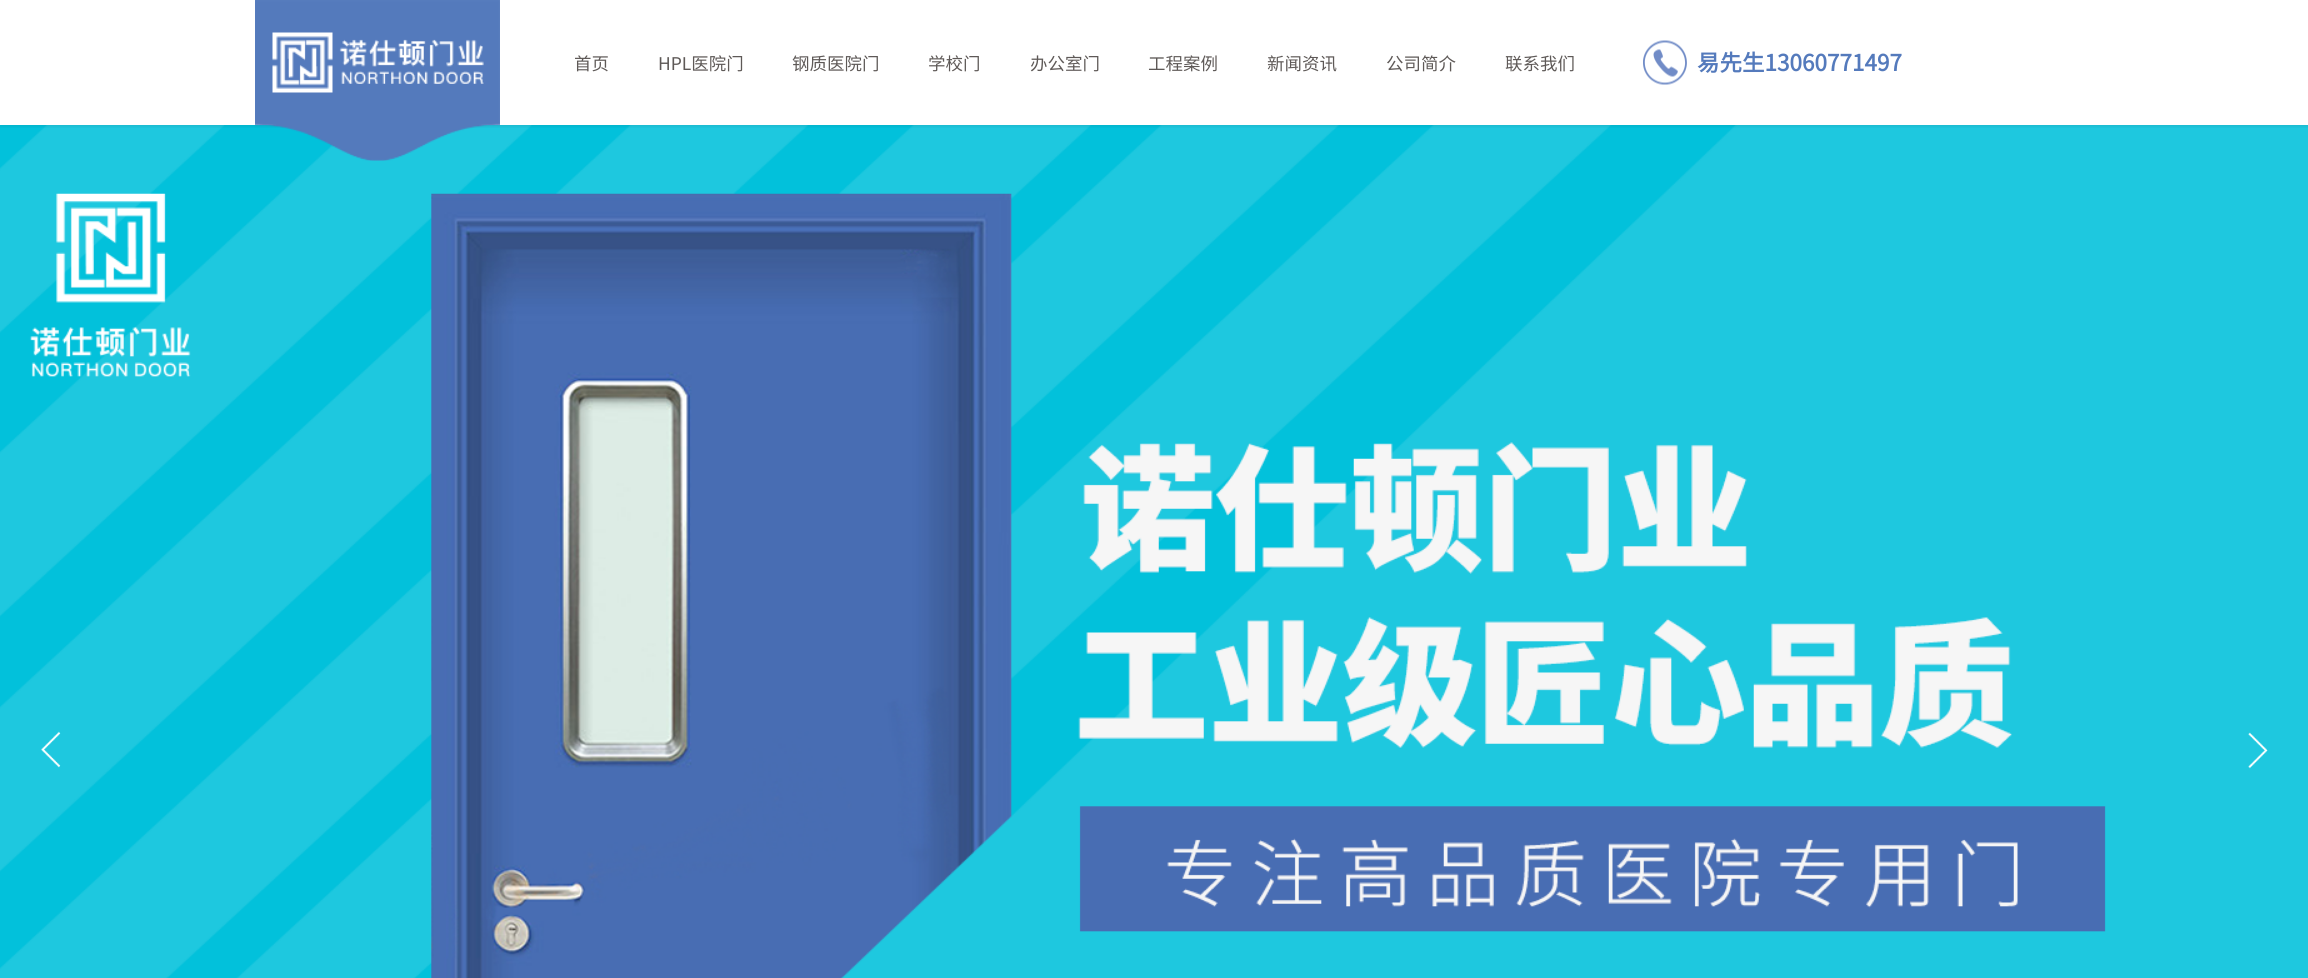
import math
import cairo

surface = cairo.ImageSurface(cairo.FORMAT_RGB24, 2308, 978)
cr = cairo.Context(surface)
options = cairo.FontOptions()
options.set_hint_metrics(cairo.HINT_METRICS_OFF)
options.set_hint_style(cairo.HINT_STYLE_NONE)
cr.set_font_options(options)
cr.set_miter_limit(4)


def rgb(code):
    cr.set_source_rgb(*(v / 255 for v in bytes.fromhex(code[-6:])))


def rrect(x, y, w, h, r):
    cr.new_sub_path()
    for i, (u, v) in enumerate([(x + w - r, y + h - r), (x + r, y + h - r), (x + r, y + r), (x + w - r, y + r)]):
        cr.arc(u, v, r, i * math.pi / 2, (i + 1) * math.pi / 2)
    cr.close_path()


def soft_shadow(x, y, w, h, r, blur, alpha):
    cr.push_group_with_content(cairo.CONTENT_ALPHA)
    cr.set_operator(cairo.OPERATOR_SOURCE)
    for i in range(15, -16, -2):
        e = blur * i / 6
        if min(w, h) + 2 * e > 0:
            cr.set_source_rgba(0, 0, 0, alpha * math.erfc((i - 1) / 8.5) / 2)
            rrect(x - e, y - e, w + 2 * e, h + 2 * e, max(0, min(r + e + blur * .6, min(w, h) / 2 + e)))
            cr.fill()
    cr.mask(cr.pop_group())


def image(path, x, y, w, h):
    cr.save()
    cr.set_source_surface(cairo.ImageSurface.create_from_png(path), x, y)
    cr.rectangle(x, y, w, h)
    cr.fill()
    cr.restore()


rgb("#ffffff")
cr.paint()
image("img/3.png", 0, 125, 2308, 853)
cr.save()
cr.rectangle(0, 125, 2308, 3)
cr.clip()
rgb("#000000")
soft_shadow(0, 1, 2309, 125, 0, 2.5, 0.1)
cr.restore()
image("img/1.png", 255, 0, 245, 161)
image("img/2.png", 1643, 40, 44, 45)
image("img/4.png", 41, 731, 20, 37)
image("img/5.png", 2248, 732, 20, 37)
cr.select_font_face("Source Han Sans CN")
cr.set_font_size(17.5)
rgb("#5e5957")
for x, y, s in [
    (574, 70, "首页"),
    (658, 70, "HPL医院门"),
    (792, 70, "钢质医院门"),
    (928, 70, "学校门"),
    (1030, 70, "办公室门"),
    (1148, 70, "工程案例"),
    (1267, 70, "新闻资讯"),
    (1386, 70, "公司简介"),
    (1505, 70, "联系我们"),
]:
    cr.move_to(x, y)
    cr.show_text(s)
cr.select_font_face("Source Han Sans CN", cairo.FONT_SLANT_NORMAL, cairo.FONT_WEIGHT_BOLD)
cr.set_font_size(22.5)
rgb("#547abc")
cr.move_to(1697, 71)
cr.show_text("易先生13060771497")
surface.write_to_png("page.png")
